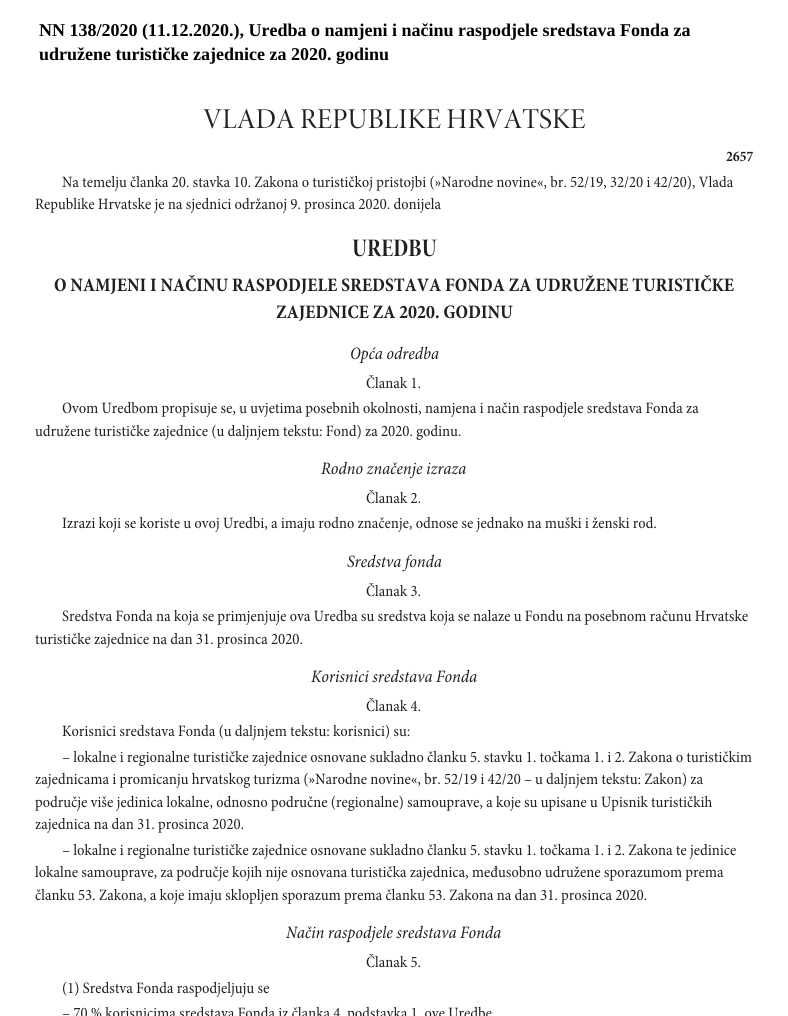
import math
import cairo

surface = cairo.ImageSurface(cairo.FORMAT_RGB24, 788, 1016)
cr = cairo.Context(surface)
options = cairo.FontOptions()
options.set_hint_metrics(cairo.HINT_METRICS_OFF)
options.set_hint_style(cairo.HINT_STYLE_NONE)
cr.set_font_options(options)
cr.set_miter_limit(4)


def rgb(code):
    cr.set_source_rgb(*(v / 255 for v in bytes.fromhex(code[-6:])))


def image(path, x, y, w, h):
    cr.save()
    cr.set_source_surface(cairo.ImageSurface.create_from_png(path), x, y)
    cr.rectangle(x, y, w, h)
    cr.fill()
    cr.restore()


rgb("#ffffff")
cr.paint()
image("img/1.png", 203, 108, 382, 21)
image("img/2.png", 726, 151, 27, 11)
image("img/3.png", 62, 175, 672, 16)
image("img/4.png", 35, 197, 406, 16)
image("img/5.png", 352, 239, 85, 18)
image("img/6.png", 54, 275, 680, 20)
image("img/7.png", 276, 305, 237, 17)
image("img/8.png", 351, 346, 88, 18)
image("img/9.png", 366, 374, 55, 15)
image("img/10.png", 62, 401, 637, 16)
image("img/11.png", 35, 424, 426, 16)
image("img/12.png", 321, 461, 145, 18)
image("img/13.png", 366, 489, 55, 15)
image("img/14.png", 62, 516, 594, 16)
image("img/15.png", 347, 554, 95, 18)
image("img/16.png", 366, 582, 55, 15)
image("img/17.png", 62, 609, 686, 16)
image("img/18.png", 35, 632, 267, 16)
image("img/19.png", 311, 669, 166, 14)
image("img/20.png", 366, 697, 55, 15)
image("img/21.png", 62, 724, 348, 16)
image("img/22.png", 62, 750, 690, 16)
image("img/23.png", 35, 772, 497, 16)
image("img/24.png", 535, 772, 168, 16)
image("img/25.png", 35, 795, 677, 16)
image("img/26.png", 35, 817, 209, 16)
image("img/27.png", 62, 843, 674, 16)
image("img/28.png", 35, 865, 689, 16)
image("img/29.png", 35, 888, 612, 16)
image("img/30.png", 286, 925, 215, 18)
image("img/31.png", 366, 953, 55, 15)
image("img/32.png", 63, 981, 206, 16)
image("img/33.png", 62, 1006, 430, 10)
cr.select_font_face("Liberation Serif", cairo.FONT_SLANT_NORMAL, cairo.FONT_WEIGHT_BOLD)
cr.set_font_size(18)
rgb("#000000")
cr.move_to(39, 36)
cr.show_text("NN 138/2020 (11.12.2020.), Uredba o namjeni i načinu raspodjele sredstava Fonda za")
cr.move_to(39, 60)
cr.show_text("udružene turističke zajednice za 2020. godinu")
surface.write_to_png("page.png")
